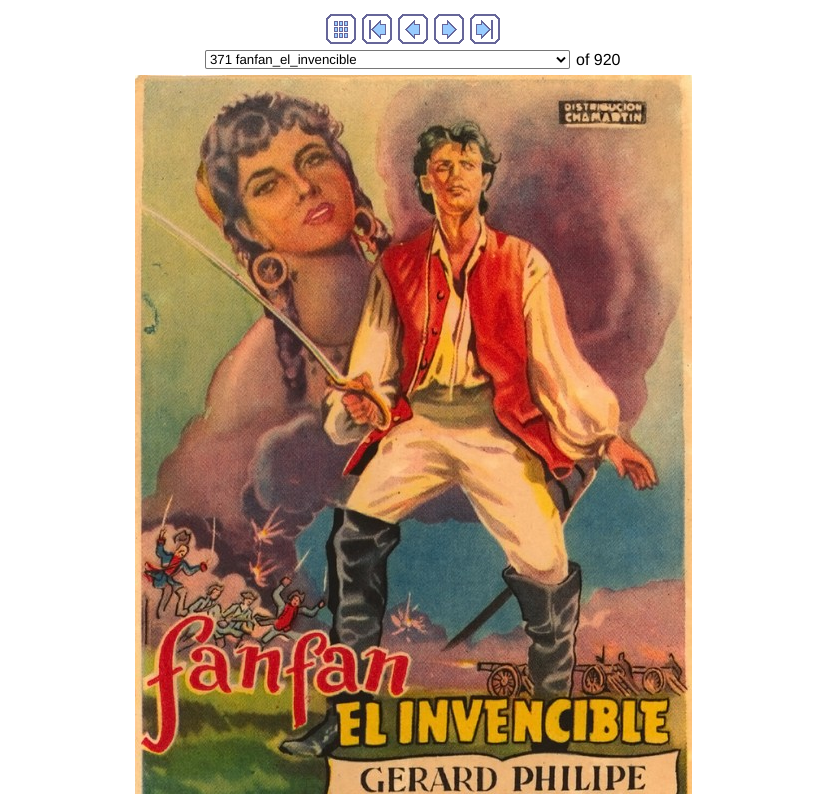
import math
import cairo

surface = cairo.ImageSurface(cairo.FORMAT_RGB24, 826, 794)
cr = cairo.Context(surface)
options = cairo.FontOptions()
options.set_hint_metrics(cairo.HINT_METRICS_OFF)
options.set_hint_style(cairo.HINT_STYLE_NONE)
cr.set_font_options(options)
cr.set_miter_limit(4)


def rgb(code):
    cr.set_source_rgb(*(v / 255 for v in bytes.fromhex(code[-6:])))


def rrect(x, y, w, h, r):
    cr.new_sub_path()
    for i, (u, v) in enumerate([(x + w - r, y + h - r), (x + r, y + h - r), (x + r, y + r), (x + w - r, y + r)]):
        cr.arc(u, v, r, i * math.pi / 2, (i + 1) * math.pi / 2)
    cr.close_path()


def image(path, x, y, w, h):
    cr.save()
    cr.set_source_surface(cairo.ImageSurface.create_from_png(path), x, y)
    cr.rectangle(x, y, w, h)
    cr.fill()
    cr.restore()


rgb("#ffffff")
cr.paint()
image("img/1.png", 326, 14, 30, 30)
image("img/2.png", 362, 14, 30, 30)
image("img/3.png", 398, 14, 30, 30)
image("img/4.png", 434, 14, 30, 30)
image("img/5.png", 470, 14, 30, 30)
rrect(205.5, 50.5, 364, 18, 1.5)
rgb("#767676")
cr.set_line_width(1)
cr.stroke()
cr.new_path()
cr.move_to(557, 57.5)
cr.line_to(561, 61.5)
cr.line_to(565, 57.5)
rgb("#000000")
cr.set_line_width(2)
cr.stroke()
image("img/6.png", 135, 75, 557, 719)
cr.select_font_face("Liberation Sans")
cr.set_font_size(13.25)
cr.move_to(210, 64)
cr.show_text("371 fanfan_el_invencible")
cr.set_font_size(16)
cr.move_to(576, 65)
cr.show_text("of 920")
surface.write_to_png("page.png")
